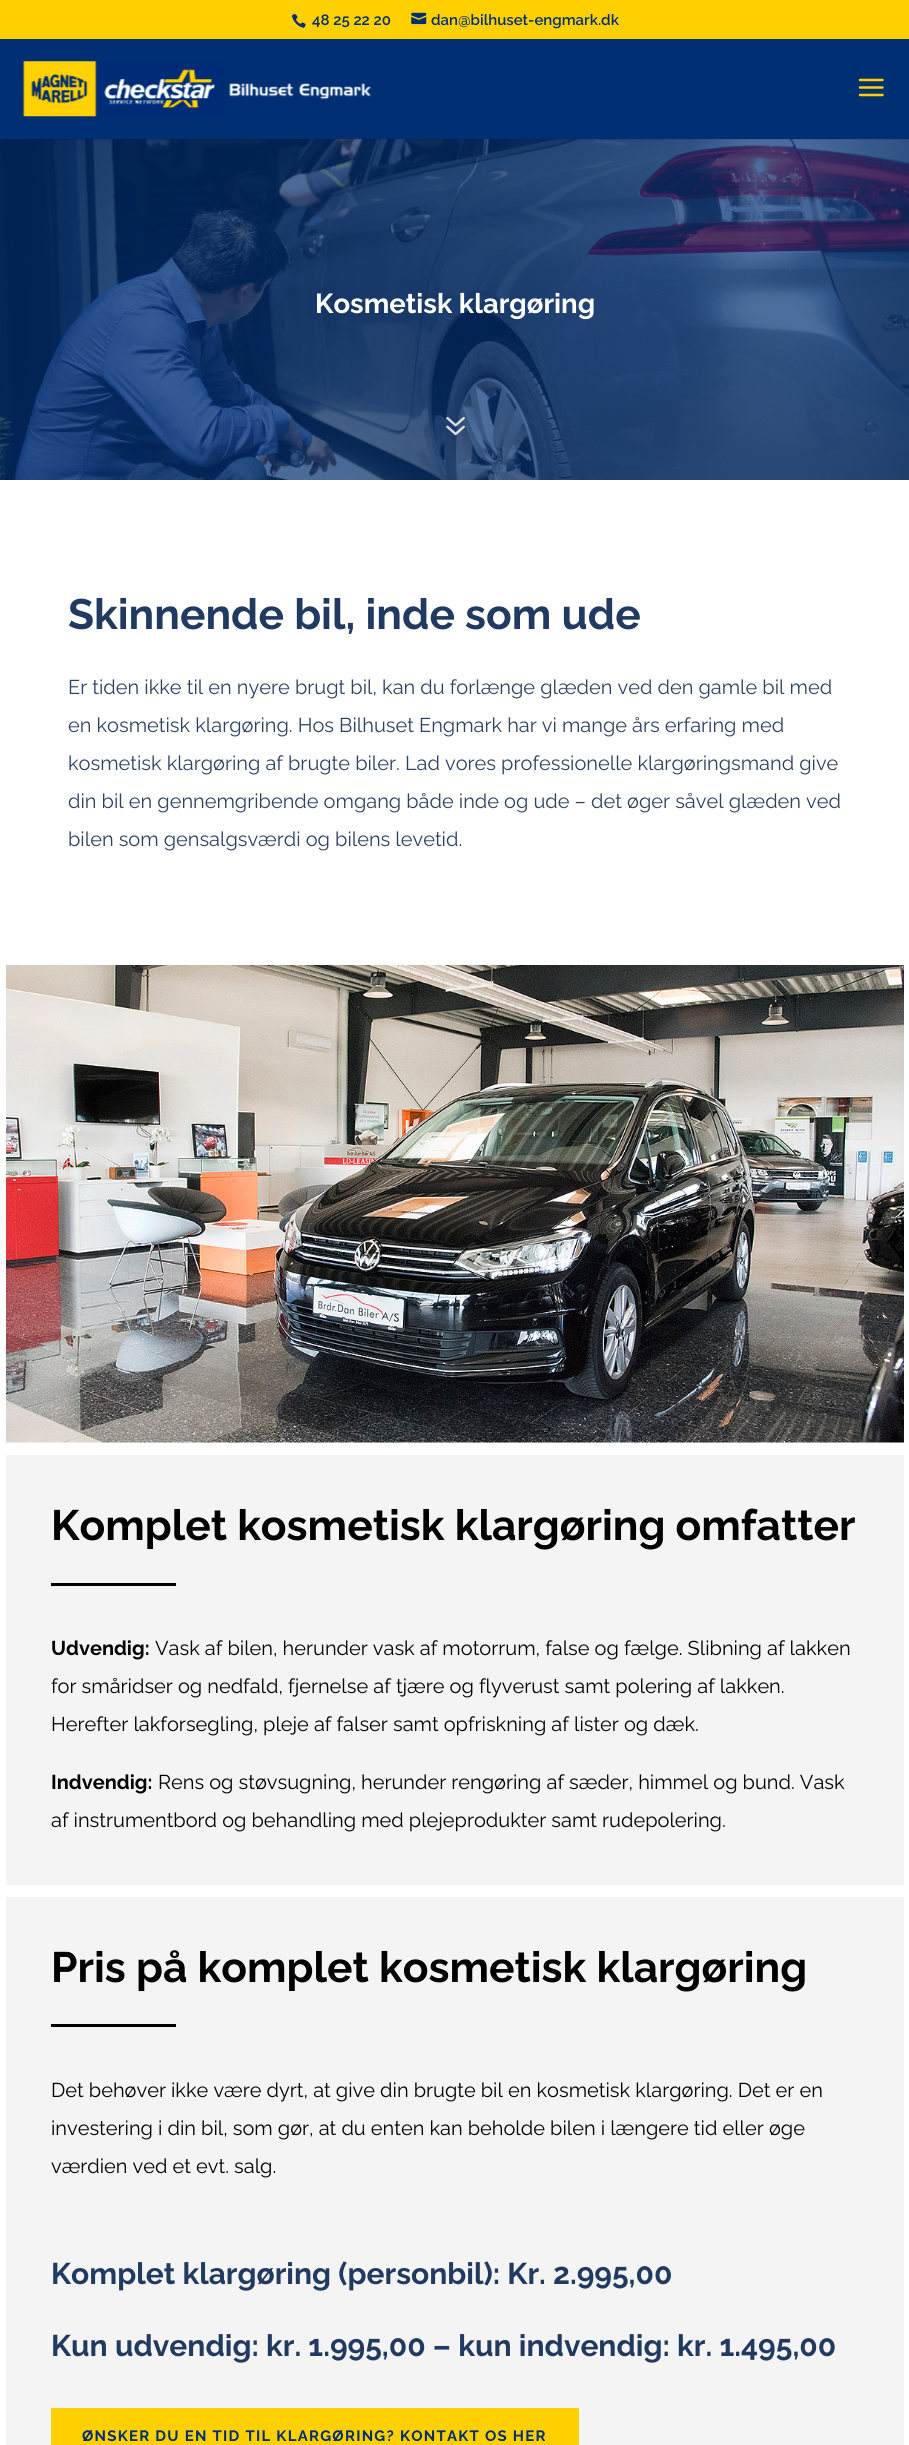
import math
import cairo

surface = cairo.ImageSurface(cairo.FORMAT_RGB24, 909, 2445)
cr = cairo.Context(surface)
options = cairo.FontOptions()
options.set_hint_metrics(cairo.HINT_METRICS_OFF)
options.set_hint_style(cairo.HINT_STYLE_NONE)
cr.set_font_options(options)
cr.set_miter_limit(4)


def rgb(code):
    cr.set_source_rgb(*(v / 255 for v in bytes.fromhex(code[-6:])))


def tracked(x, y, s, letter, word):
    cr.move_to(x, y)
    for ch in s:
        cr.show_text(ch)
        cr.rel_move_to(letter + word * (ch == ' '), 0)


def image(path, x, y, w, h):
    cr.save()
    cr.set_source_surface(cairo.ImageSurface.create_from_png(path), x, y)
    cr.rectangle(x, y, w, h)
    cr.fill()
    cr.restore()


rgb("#ffffff")
cr.paint()
rgb("#ffd000")
cr.rectangle(0, 0, 909, 39)
cr.fill()
image("img/1.png", 291, 14, 15, 14)
image("img/2.png", 411, 12, 16, 13)
image("img/5.png", 0, 139, 909, 341)
cr.set_source_rgba(0, 0, 0, 0.1)
cr.rectangle(0, 139, 909, 1)
cr.fill()
rgb("#002f73")
cr.rectangle(0, 39, 909, 100)
cr.fill()
image("img/3.png", 23, 61, 348, 56)
image("img/4.png", 858, 78, 26, 19)
image("img/6.png", 446, 417, 19, 19)
image("img/7.png", 6, 965, 898, 478)
for x, y, w, h, color in [
    (6, 1455, 898, 430, "#f4f4f4"),
    (51, 1583, 125, 3, "#000000"),
    (6, 1897, 898, 548, "#f4f4f4"),
    (51, 2024, 125, 3, "#000000"),
    (51, 2408, 528, 37, "#ffd000"),
]:
    rgb(color)
    cr.rectangle(x, y, w, h)
    cr.fill()
cr.select_font_face("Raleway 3 Thin")
cr.set_font_size(15)
rgb("#002f73")
cr.move_to(312, 25)
cr.show_text("48 25 22 20")
cr.move_to(431, 25)
cr.show_text("dan@bilhuset-engmark.dk")
cr.select_font_face("Raleway Thin")
cr.set_font_size(27.5)
rgb("#ffffff")
cr.move_to(315, 313)
cr.show_text("Kosmetisk klargøring")
cr.set_font_size(42.5)
rgb("#203a61")
cr.move_to(68, 629)
cr.show_text("Skinnende bil, inde som ude")
cr.select_font_face("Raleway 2 Thin")
cr.set_font_size(20)
rgb("#2d4260")
for x, y, s in [
    (68, 694, "Er tiden ikke til en nyere brugt bil, kan du forlænge glæden ved den gamle bil med"),
    (68, 732, "en kosmetisk klargøring. Hos Bilhuset Engmark har vi mange års erfaring med"),
    (68, 770, "kosmetisk klargøring af brugte biler. Lad vores professionelle klargøringsmand give"),
    (68, 808, "din bil en gennemgribende omgang både inde og ude – det øger såvel glæden ved"),
    (68, 846, "bilen som gensalgsværdi og bilens levetid."),
]:
    cr.move_to(x, y)
    cr.show_text(s)
cr.select_font_face("Raleway Thin")
cr.set_font_size(42.5)
rgb("#000000")
cr.move_to(51, 1540)
cr.show_text("Komplet kosmetisk klargøring omfatter")
cr.set_font_size(20)
cr.move_to(51, 1655)
cr.show_text("Udvendig:")
cr.select_font_face("Raleway 2 Thin")
for x, y, s in [
    (155, 1655, "Vask af bilen, herunder vask af motorrum, false og fælge. Slibning af lakken"),
    (51, 1693, "for småridser og nedfald, fjernelse af tjære og flyverust samt polering af lakken."),
    (51, 1731, "Herefter lakforsegling, pleje af falser samt opfriskning af lister og dæk."),
]:
    cr.move_to(x, y)
    cr.show_text(s)
cr.select_font_face("Raleway Thin")
cr.move_to(51, 1789)
cr.show_text("Indvendig:")
cr.select_font_face("Raleway 2 Thin")
cr.move_to(158, 1789)
cr.show_text("Rens og støvsugning, herunder rengøring af sæder, himmel og bund. Vask")
cr.move_to(51, 1827)
cr.show_text("af instrumentbord og behandling med plejeprodukter samt rudepolering.")
cr.select_font_face("Raleway Thin")
cr.set_font_size(42.5)
cr.move_to(51, 1982)
cr.show_text("Pris på komplet kosmetisk klargøring")
cr.select_font_face("Raleway 2 Thin")
cr.set_font_size(20)
for x, y, s in [
    (51, 2097, "Det behøver ikke være dyrt, at give din brugte bil en kosmetisk klargøring. Det er en"),
    (51, 2135, "investering i din bil, som gør, at du enten kan beholde bilen i længere tid eller øge"),
    (51, 2173, "værdien ved et evt. salg."),
]:
    cr.move_to(x, y)
    cr.show_text(s)
cr.select_font_face("Raleway Thin")
cr.set_font_size(30)
rgb("#203a61")
cr.move_to(51, 2284)
cr.show_text("Komplet klargøring (personbil): Kr. 2.995,00")
cr.move_to(51, 2356)
cr.show_text("Kun udvendig: kr. 1.995,00 – kun indvendig: kr. 1.495,00")
cr.set_font_size(15)
rgb("#002f73")
tracked(82, 2441, "ØNSKER DU EN TID TIL KLARGØRING? KONTAKT OS HER", 1.25, 0)
surface.write_to_png("page.png")
